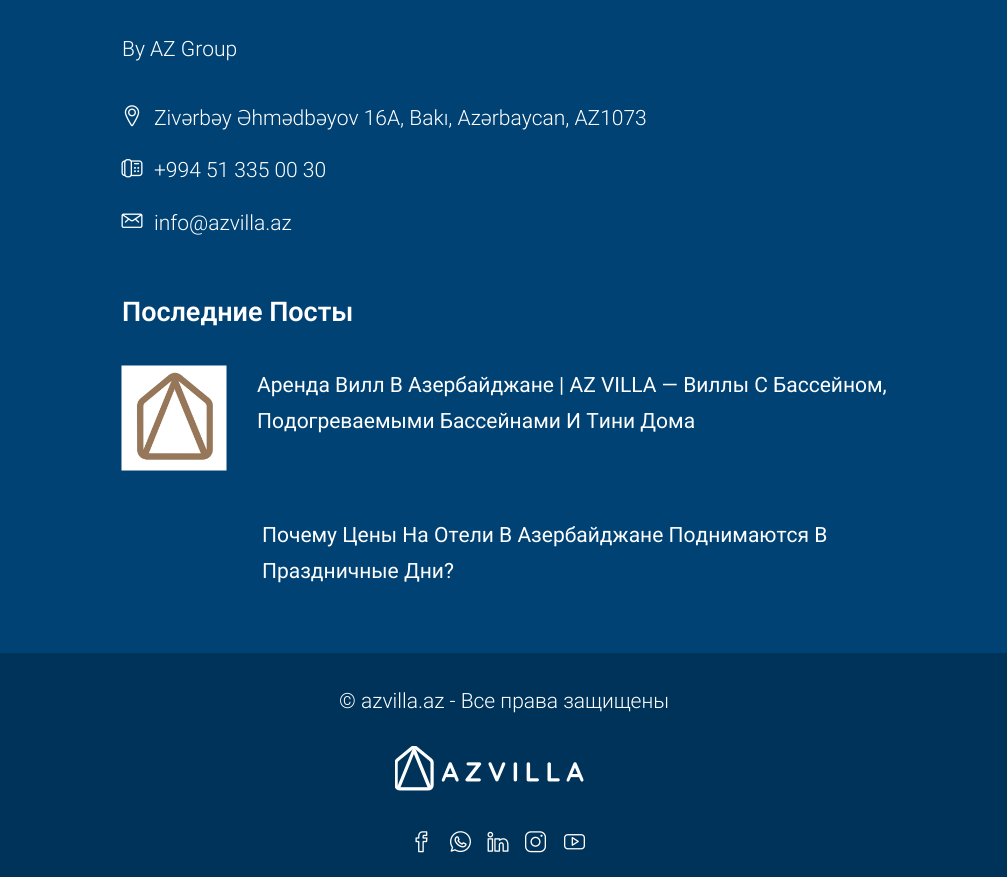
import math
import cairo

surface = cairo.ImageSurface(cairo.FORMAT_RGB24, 1007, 877)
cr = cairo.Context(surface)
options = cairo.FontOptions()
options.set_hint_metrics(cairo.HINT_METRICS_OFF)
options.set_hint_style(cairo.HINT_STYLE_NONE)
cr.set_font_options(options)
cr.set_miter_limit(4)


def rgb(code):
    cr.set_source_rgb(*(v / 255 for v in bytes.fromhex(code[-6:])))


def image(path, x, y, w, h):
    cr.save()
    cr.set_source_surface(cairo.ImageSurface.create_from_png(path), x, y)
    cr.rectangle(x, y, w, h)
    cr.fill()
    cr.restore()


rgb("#004274")
cr.paint()
image("img/1.png", 124, 105, 16, 22)
image("img/2.png", 121, 159, 22, 19)
image("img/3.png", 121, 213, 22, 15)
image("img/4.png", 121, 365, 106, 106)
rgb("#00335a")
cr.rectangle(0, 653, 1007, 224)
cr.fill()
image("img/5.png", 395, 746, 189, 45)
image("img/6.png", 415, 831, 13, 22)
image("img/7.png", 450, 831, 21, 22)
image("img/8.png", 487, 831, 22, 21)
image("img/9.png", 525, 831, 21, 22)
image("img/10.png", 564, 834, 21, 16)
cr.select_font_face("Roboto Light")
cr.set_font_size(21)
rgb("#ffffff")
for x, y, s in [
    (122, 56, "By AZ Group"),
    (154, 125, "Zivərbəy Əhmədbəyov 16A, Bakı, Azərbaycan, AZ1073"),
    (154, 177, "+994 51 335 00 30"),
    (154, 230, "info@azvilla.az"),
]:
    cr.move_to(x, y)
    cr.show_text(s)
cr.select_font_face("Roboto SemiBold")
cr.set_font_size(27)
cr.move_to(122, 321)
cr.show_text("Последние Посты")
cr.select_font_face("Roboto")
cr.set_font_size(21)
for x, y, s in [
    (257, 392, "Аренда Вилл В Азербайджане | АZ VILLA — Виллы С Бассейном,"),
    (257, 428, "Подогреваемыми Бассейнами И Тини Дома"),
    (262, 542, "Почему Цены На Отели В Азербайджане Поднимаются В"),
    (262, 578, "Праздничные Дни?"),
]:
    cr.move_to(x, y)
    cr.show_text(s)
cr.select_font_face("Roboto Light")
cr.move_to(339, 708)
cr.show_text("© azvilla.az - Все права защищены")
surface.write_to_png("page.png")
